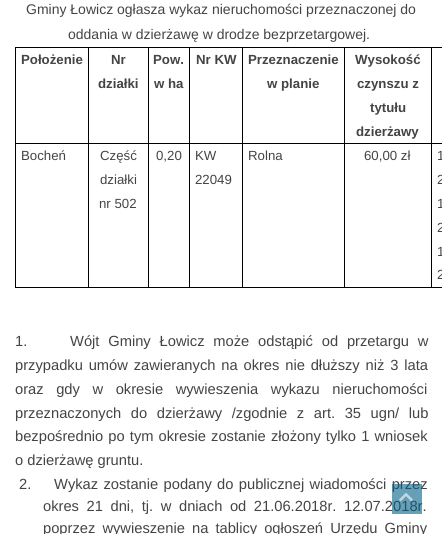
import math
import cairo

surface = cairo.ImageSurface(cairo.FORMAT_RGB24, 442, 534)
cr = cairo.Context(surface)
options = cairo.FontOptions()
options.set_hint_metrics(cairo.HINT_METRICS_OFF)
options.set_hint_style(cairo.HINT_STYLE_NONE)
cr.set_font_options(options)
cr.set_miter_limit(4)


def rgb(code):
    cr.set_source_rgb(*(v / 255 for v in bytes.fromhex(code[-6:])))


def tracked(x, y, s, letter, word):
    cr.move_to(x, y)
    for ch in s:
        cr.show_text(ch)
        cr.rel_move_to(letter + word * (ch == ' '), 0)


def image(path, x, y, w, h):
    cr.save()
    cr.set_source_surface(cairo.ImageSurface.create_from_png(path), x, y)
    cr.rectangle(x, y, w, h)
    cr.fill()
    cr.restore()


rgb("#ffffff")
cr.paint()
for x, y, w, h, color in [
    (15, 47, 427, 1, "#000000"),
    (431, 287, 11, 1, "#000000"),
    (431, 143, 1, 145, "#000000"),
    (431, 143, 11, 1, "#000000"),
    (431, 47, 1, 97, "#000000"),
    (344, 287, 88, 1, "#000000"),
    (344, 143, 1, 145, "#000000"),
    (344, 143, 88, 1, "#000000"),
    (344, 47, 1, 97, "#000000"),
    (242, 287, 103, 1, "#000000"),
    (242, 143, 1, 145, "#000000"),
    (242, 143, 103, 1, "#000000"),
    (242, 47, 1, 97, "#000000"),
    (189, 287, 54, 1, "#000000"),
    (189, 143, 1, 145, "#000000"),
    (189, 143, 54, 1, "#000000"),
    (189, 47, 1, 97, "#000000"),
    (148, 287, 42, 1, "#000000"),
    (148, 143, 1, 145, "#000000"),
    (148, 143, 42, 1, "#000000"),
    (148, 47, 1, 97, "#000000"),
    (88, 287, 61, 1, "#000000"),
    (88, 143, 1, 145, "#000000"),
    (88, 143, 61, 1, "#000000"),
    (88, 47, 1, 97, "#000000"),
    (15, 287, 74, 1, "#000000"),
    (15, 143, 1, 145, "#000000"),
    (15, 143, 74, 1, "#000000"),
    (15, 47, 1, 97, "#000000"),
]:
    rgb(color)
    cr.rectangle(x, y, w, h)
    cr.fill()
cr.select_font_face("Liberation Sans")
cr.set_font_size(14)
rgb("#444444")
cr.move_to(26, 14)
cr.show_text("Gminy Łowicz ogłasza wykaz nieruchomości przeznaczonej do")
cr.move_to(68, 39)
cr.show_text("oddania w dzierżawę w drodze bezprzetargowej.")
cr.select_font_face("Liberation Sans", cairo.FONT_SLANT_NORMAL, cairo.FONT_WEIGHT_BOLD)
cr.set_font_size(13.25)
for x, y, s in [
    (21, 64, "Położenie"),
    (111, 64, "Nr"),
    (98, 88, "działki"),
    (153, 64, "Pow."),
    (154, 88, "w ha"),
    (196, 64, "Nr KW"),
    (248, 64, "Przeznaczenie"),
    (267, 88, "w planie"),
    (355, 64, "Wysokość"),
    (357, 88, "czynszu z"),
    (370, 112, "tytułu"),
    (356, 136, "dzierżawy"),
]:
    cr.move_to(x, y)
    cr.show_text(s)
cr.select_font_face("Liberation Sans")
for x, y, s in [
    (21, 160, "Bocheń"),
    (100, 160, "Część"),
    (100, 184, "działki"),
    (99, 208, "nr 502"),
    (156, 160, "0,20"),
    (195, 160, "KW"),
    (195, 184, "22049"),
    (248, 160, "Rolna"),
    (364, 160, "60,00 zł"),
    (437, 160, "1"),
    (437, 184, "2"),
    (437, 208, "1"),
    (437, 232, "2"),
    (437, 256, "1"),
    (437, 279, "2"),
]:
    cr.move_to(x, y)
    cr.show_text(s)
cr.set_font_size(14.7)
cr.move_to(15, 346)
cr.show_text("1.")
tracked(70, 346, "Wójt Gminy Łowicz może odstąpić od przetargu w", 0, 4.75)
tracked(15, 370, "przypadku umów zawieranych na okres nie dłuższy niż 3 lata", 0, 1.75)
tracked(15, 394, "oraz gdy w okresie wywieszenia wykazu nieruchomości", 0, 8.5)
tracked(15, 418, "przeznaczonych do dzierżawy /zgodnie z art. 35 ugn/ lub", 0, 5.5)
tracked(15, 441, "bezpośrednio po tym okresie zostanie złożony tylko 1 wniosek", 0, 1)
cr.move_to(15, 465)
cr.show_text("o dzierżawę gruntu.")
cr.move_to(19, 489)
cr.show_text("2.")
tracked(54, 489, "Wykaz zostanie podany do publicznej wiadomości przez", 0, 1.25)
tracked(43, 511, "okres 21 dni, tj. w dniach od 21.06.2018r. 12.07.2018r.", 0, 3.5)
tracked(43, 533, "poprzez wywieszenie na tablicy ogłoszeń Urzędu Gminy", 0, 3)
cr.set_source_rgba(0.012, 0.376, 0.522, 0.6)
cr.rectangle(392, 484, 30, 30)
cr.fill()
image("img/1.png", 399, 493, 14, 9)
surface.write_to_png("page.png")
